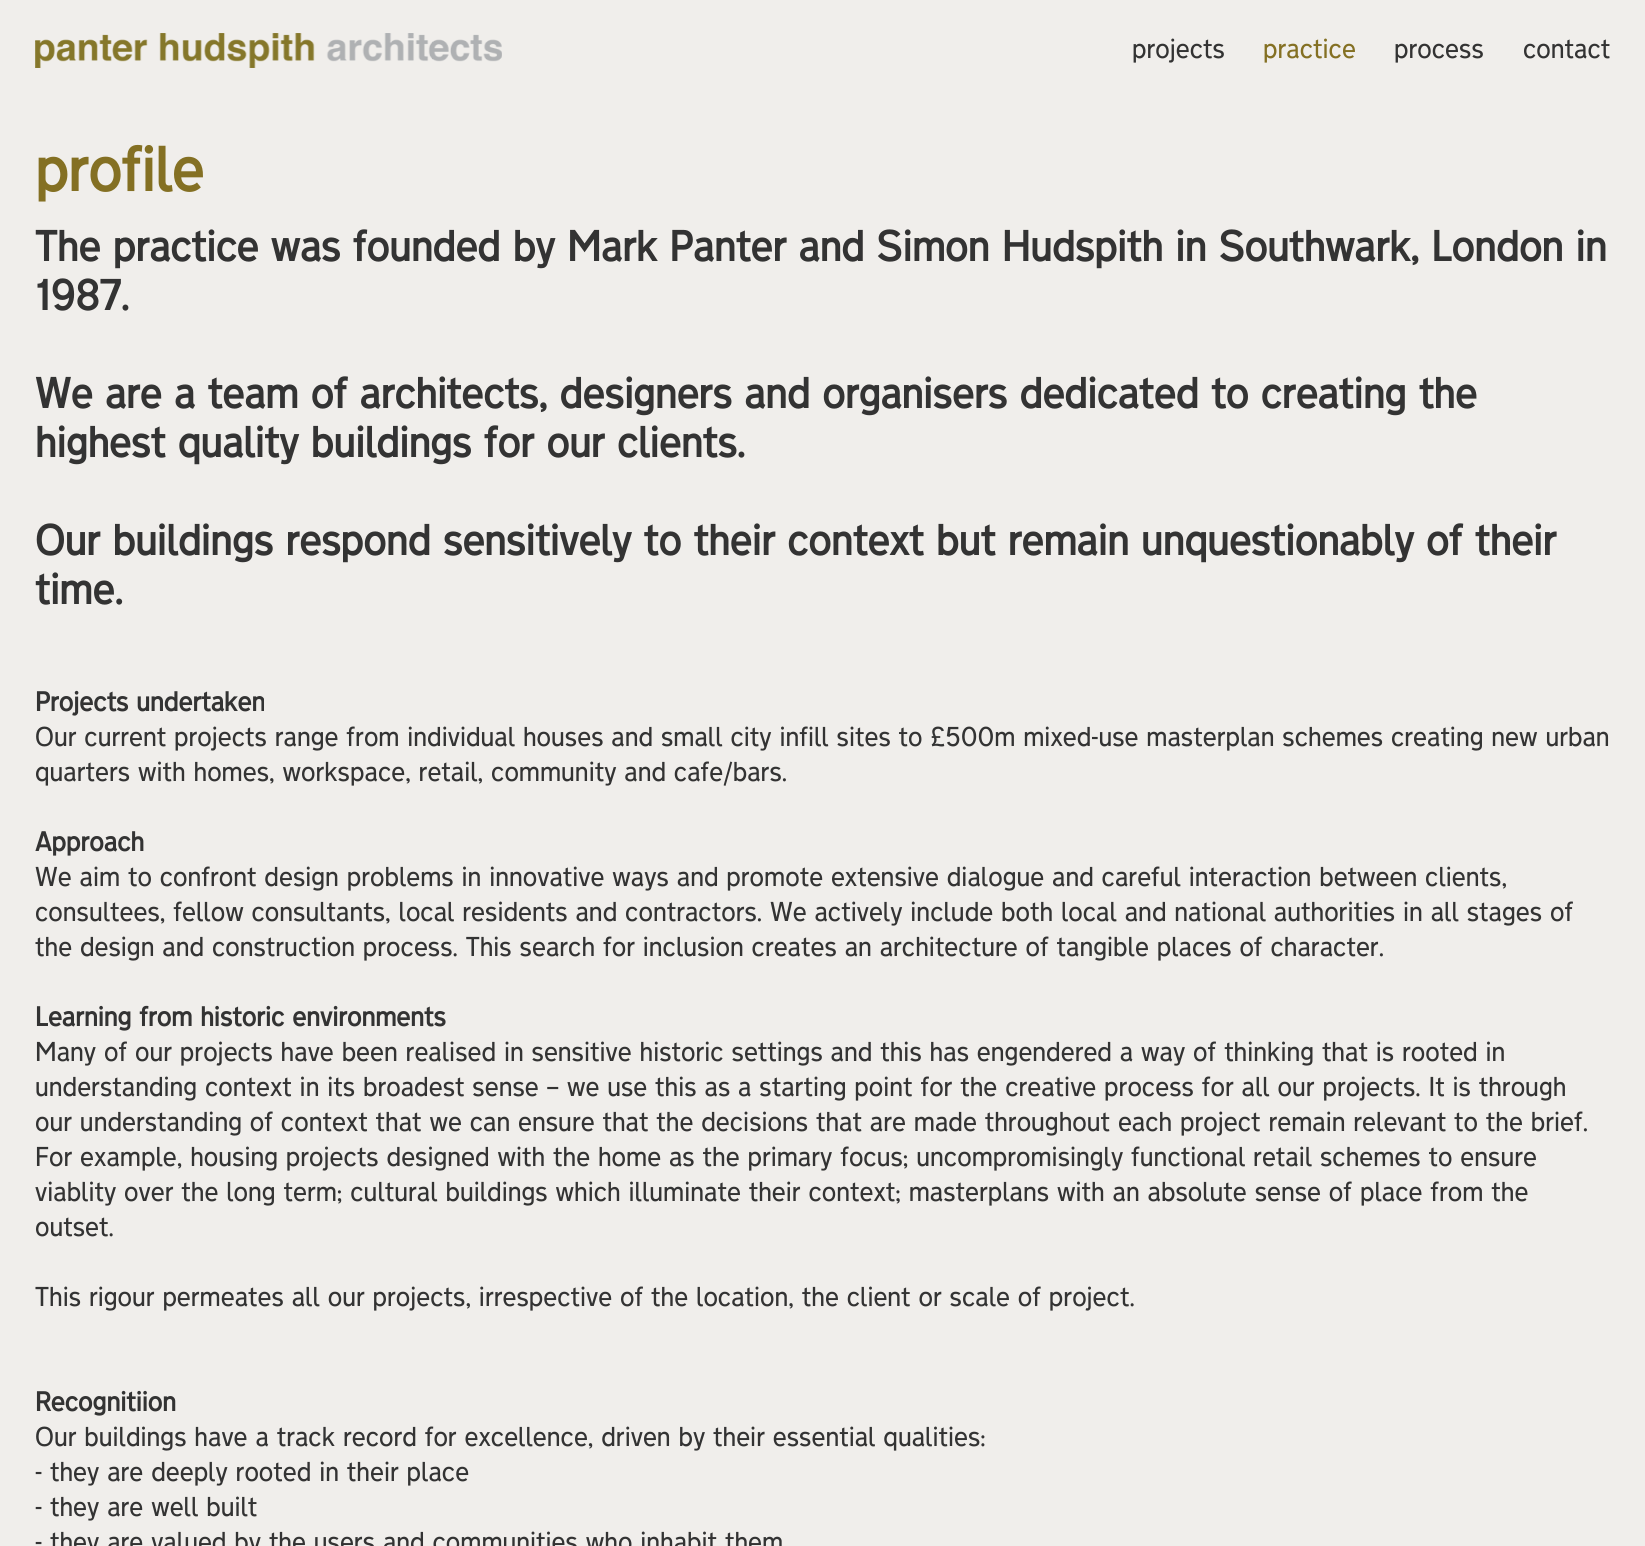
import math
import cairo

surface = cairo.ImageSurface(cairo.FORMAT_RGB24, 1645, 1546)
cr = cairo.Context(surface)
options = cairo.FontOptions()
options.set_hint_metrics(cairo.HINT_METRICS_OFF)
options.set_hint_style(cairo.HINT_STYLE_NONE)
cr.set_font_options(options)
cr.set_miter_limit(4)


def rgb(code):
    cr.set_source_rgb(*(v / 255 for v in bytes.fromhex(code[-6:])))


def image(path, x, y, w, h):
    cr.save()
    cr.set_source_surface(cairo.ImageSurface.create_from_png(path), x, y)
    cr.rectangle(x, y, w, h)
    cr.fill()
    cr.restore()


rgb("#f0eeeb")
cr.paint()
image("img/1.png", 35, 33, 467, 35)
cr.select_font_face("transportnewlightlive")
cr.set_font_size(24.5)
rgb("#333333")
cr.move_to(1132, 58)
cr.show_text("projects")
rgb("#847023")
cr.move_to(1263, 58)
cr.show_text("practice")
rgb("#333333")
cr.move_to(1394, 58)
cr.show_text("process")
cr.move_to(1523, 58)
cr.show_text("contact")
cr.select_font_face("transportnewlightlive", cairo.FONT_SLANT_NORMAL, cairo.FONT_WEIGHT_BOLD)
cr.set_font_size(56)
rgb("#847023")
cr.move_to(35, 191)
cr.show_text("profile")
cr.set_font_size(38.5)
rgb("#333333")
for x, y, s in [
    (35, 261, "The practice was founded by Mark Panter and Simon Hudspith in Southwark, London in"),
    (35, 310, "1987."),
    (35, 408, "We are a team of architects, designers and organisers dedicated to creating the"),
    (35, 457, "highest quality buildings for our clients."),
    (35, 555, "Our buildings respond sensitively to their context but remain unquestionably of their"),
    (35, 604, "time."),
]:
    cr.move_to(x, y)
    cr.show_text(s)
cr.set_font_size(24.5)
cr.move_to(35, 711)
cr.show_text("Projects undertaken")
cr.select_font_face("transportnewlightlive")
cr.move_to(35, 746)
cr.show_text("Our current projects range from individual houses and small city infill sites to £500m mixed-use masterplan schemes creating new urban")
cr.move_to(35, 781)
cr.show_text("quarters with homes, workspace, retail, community and cafe/bars.")
cr.select_font_face("transportnewlightlive", cairo.FONT_SLANT_NORMAL, cairo.FONT_WEIGHT_BOLD)
cr.move_to(35, 851)
cr.show_text("Approach")
cr.select_font_face("transportnewlightlive")
for x, y, s in [
    (35, 886, "We aim to confront design problems in innovative ways and promote extensive dialogue and careful interaction between clients,"),
    (35, 921, "consultees, fellow consultants, local residents and contractors. We actively include both local and national authorities in all stages of"),
    (35, 956, "the design and construction process. This search for inclusion creates an architecture of tangible places of character."),
]:
    cr.move_to(x, y)
    cr.show_text(s)
cr.select_font_face("transportnewlightlive", cairo.FONT_SLANT_NORMAL, cairo.FONT_WEIGHT_BOLD)
cr.move_to(35, 1026)
cr.show_text("Learning from historic environments")
cr.select_font_face("transportnewlightlive")
for x, y, s in [
    (35, 1061, "Many of our projects have been realised in sensitive historic settings and this has engendered a way of thinking that is rooted in"),
    (35, 1096, "understanding context in its broadest sense – we use this as a starting point for the creative process for all our projects. It is through"),
    (35, 1131, "our understanding of context that we can ensure that the decisions that are made throughout each project remain relevant to the brief."),
    (35, 1166, "For example, housing projects designed with the home as the primary focus; uncompromisingly functional retail schemes to ensure"),
    (35, 1201, "viablity over the long term; cultural buildings which illuminate their context; masterplans with an absolute sense of place from the"),
    (35, 1236, "outset."),
    (35, 1306, "This rigour permeates all our projects, irrespective of the location, the client or scale of project."),
]:
    cr.move_to(x, y)
    cr.show_text(s)
cr.select_font_face("transportnewlightlive", cairo.FONT_SLANT_NORMAL, cairo.FONT_WEIGHT_BOLD)
cr.move_to(35, 1411)
cr.show_text("Recognitiion")
cr.select_font_face("transportnewlightlive")
for x, y, s in [
    (35, 1446, "Our buildings have a track record for excellence, driven by their essential qualities:"),
    (35, 1481, "- they are deeply rooted in their place"),
    (35, 1516, "- they are well built"),
    (35, 1551, "- they are valued by the users and communities who inhabit them"),
]:
    cr.move_to(x, y)
    cr.show_text(s)
surface.write_to_png("page.png")
